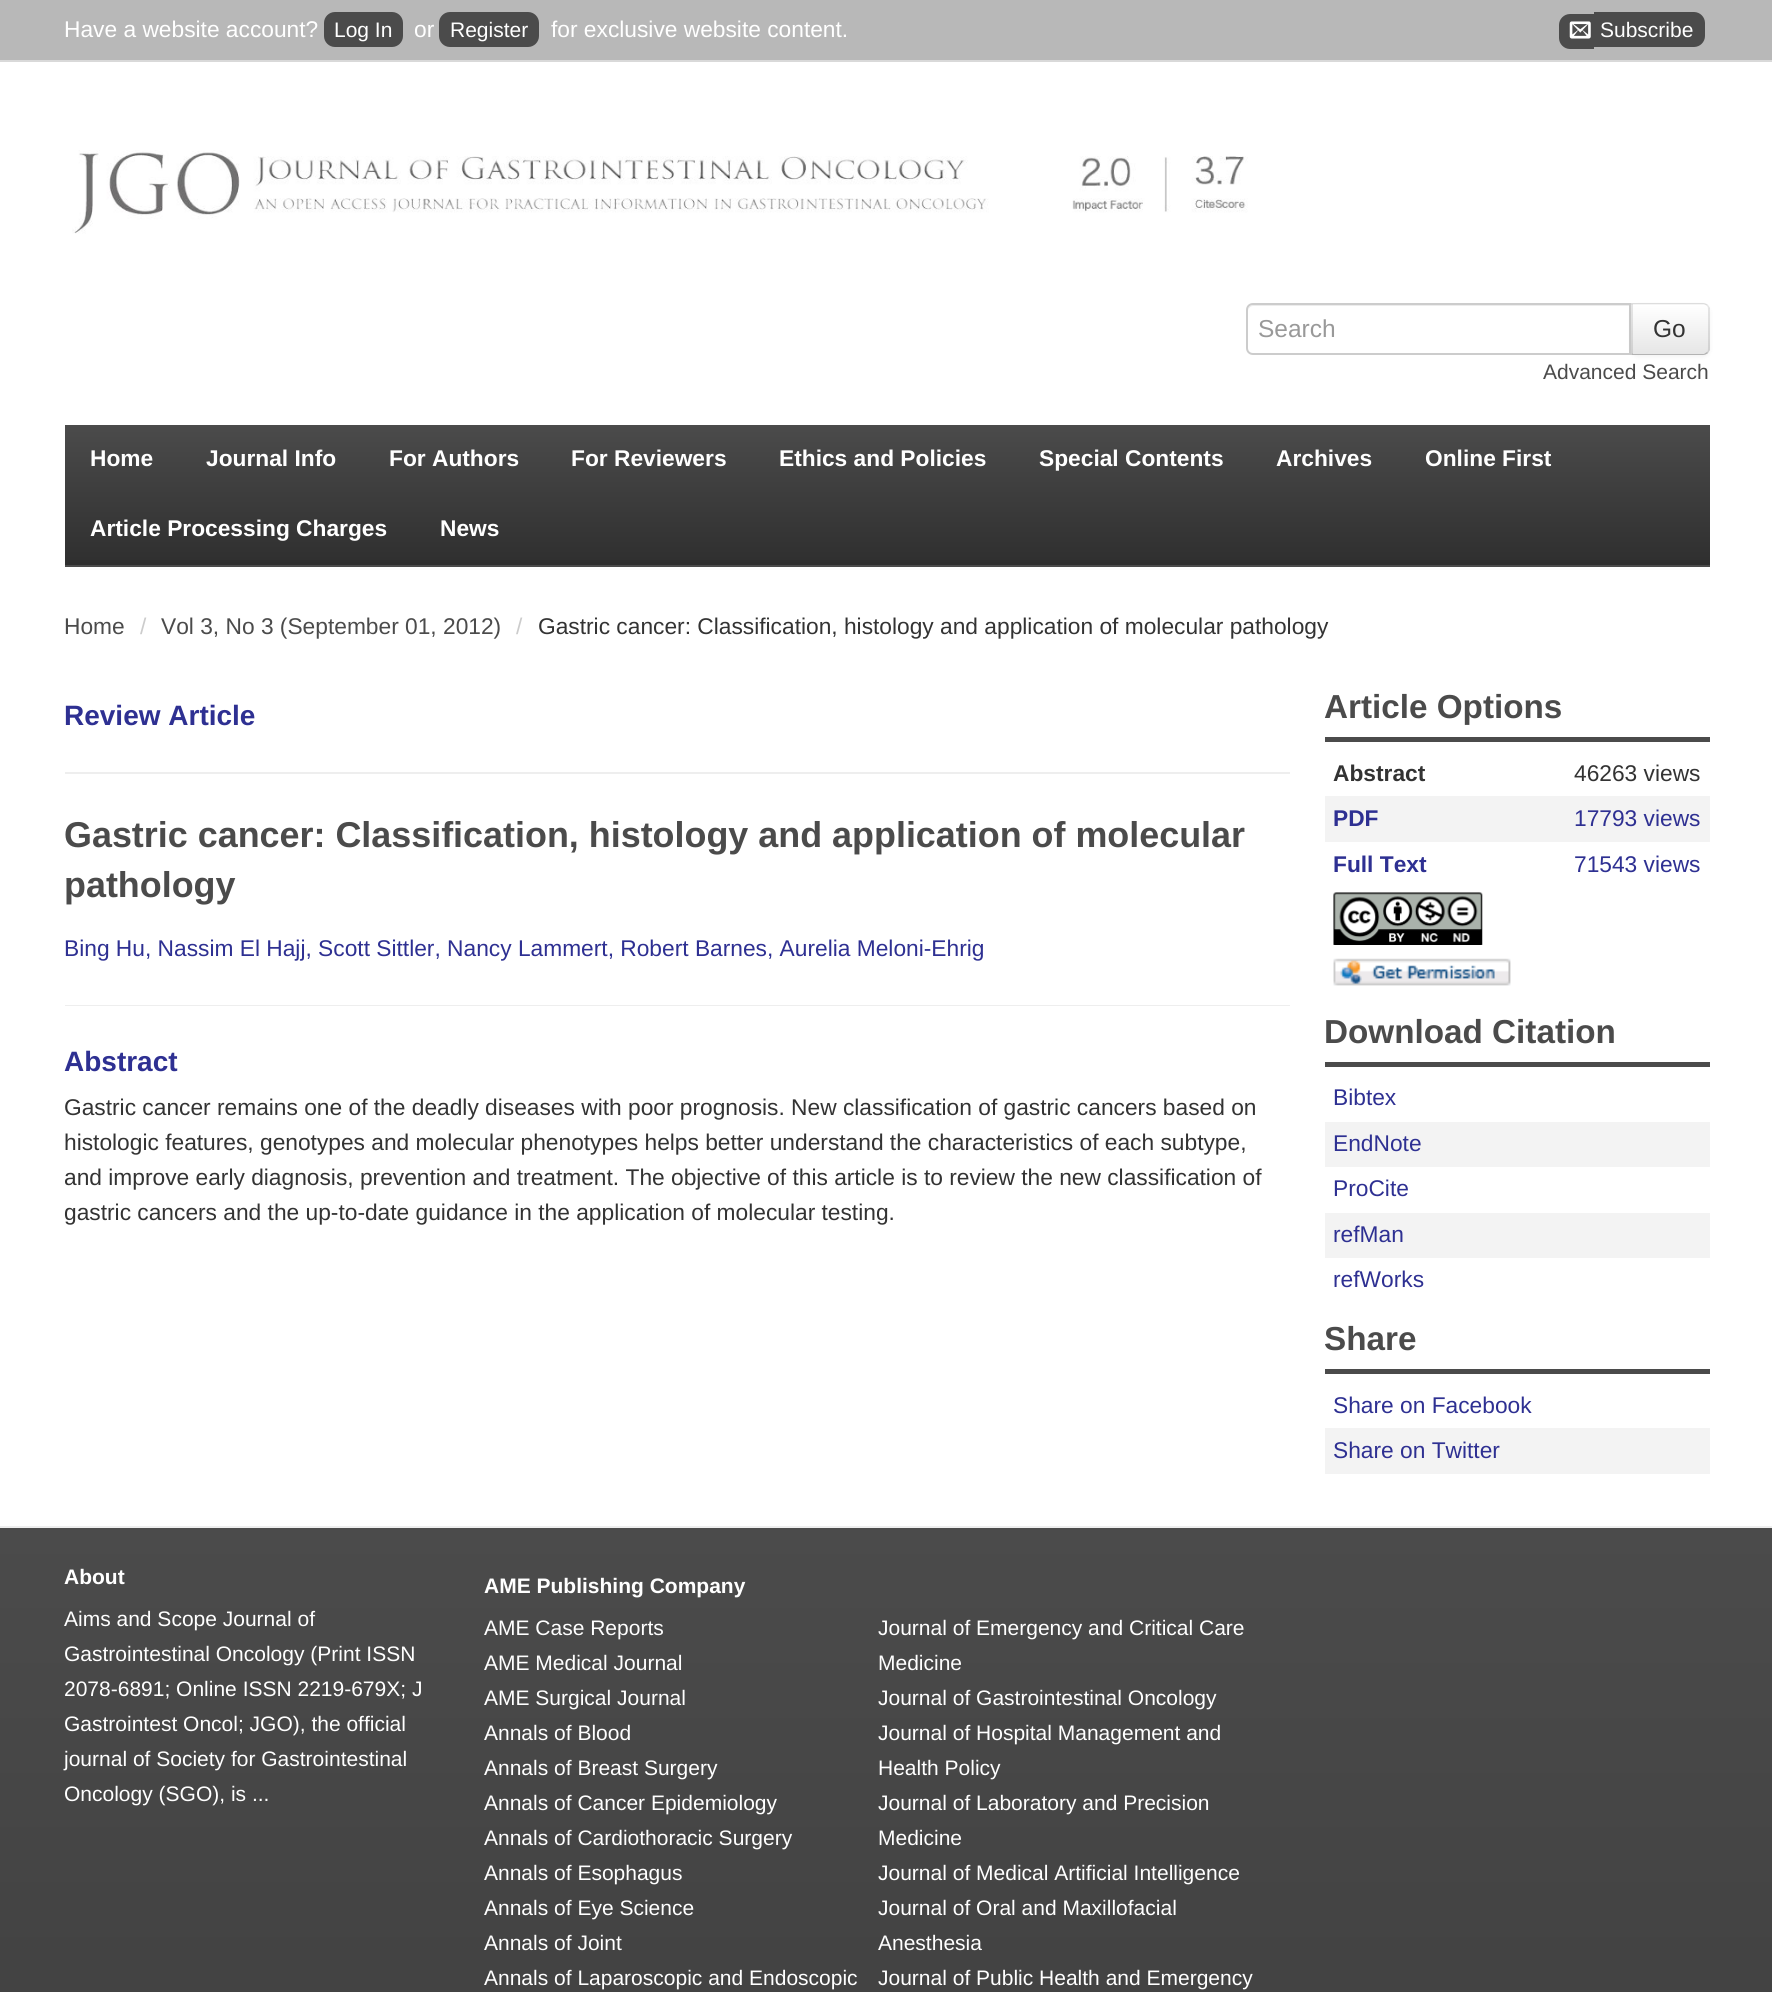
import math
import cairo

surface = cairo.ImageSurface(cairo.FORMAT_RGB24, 1772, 1992)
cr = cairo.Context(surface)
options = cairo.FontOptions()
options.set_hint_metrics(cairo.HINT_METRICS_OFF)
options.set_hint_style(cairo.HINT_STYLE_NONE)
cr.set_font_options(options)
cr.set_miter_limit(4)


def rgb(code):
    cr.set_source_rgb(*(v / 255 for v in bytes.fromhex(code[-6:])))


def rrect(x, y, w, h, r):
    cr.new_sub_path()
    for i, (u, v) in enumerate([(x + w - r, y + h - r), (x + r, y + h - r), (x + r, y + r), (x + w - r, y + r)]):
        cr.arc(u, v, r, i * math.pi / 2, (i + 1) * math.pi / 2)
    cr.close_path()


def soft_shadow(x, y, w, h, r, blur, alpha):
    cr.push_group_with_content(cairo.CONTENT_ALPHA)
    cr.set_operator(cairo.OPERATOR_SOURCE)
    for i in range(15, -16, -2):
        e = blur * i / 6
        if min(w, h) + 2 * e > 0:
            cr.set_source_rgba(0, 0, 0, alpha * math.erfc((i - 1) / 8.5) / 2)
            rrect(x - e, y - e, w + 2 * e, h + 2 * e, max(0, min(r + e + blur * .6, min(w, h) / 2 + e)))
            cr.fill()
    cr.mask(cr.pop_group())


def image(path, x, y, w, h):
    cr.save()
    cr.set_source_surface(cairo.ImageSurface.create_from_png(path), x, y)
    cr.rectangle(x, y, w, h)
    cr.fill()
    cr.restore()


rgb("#ffffff")
cr.paint()
rgb("#b8b8b8")
cr.rectangle(0, 0, 1772, 60)
cr.fill()
rgb("#d9d9d9")
cr.rectangle(0, 60, 1772, 2)
cr.fill()
rgb("#4b4b4b")
rrect(324, 12, 79, 35, 11)
cr.fill()
rrect(439, 12, 100, 35, 11)
cr.fill()
cr.new_path()
cr.move_to(1570, 14)
cr.line_to(1594, 14)
cr.line_to(1594, 49)
cr.line_to(1570, 49)
cr.curve_to(1564, 49, 1559, 44, 1559, 38)
cr.line_to(1559, 25)
cr.curve_to(1559, 19, 1564, 14, 1570, 14)
cr.close_path()
cr.fill()
cr.new_path()
cr.move_to(1594, 12)
cr.line_to(1694, 12)
cr.curve_to(1700, 12, 1705, 17, 1705, 23)
cr.line_to(1705, 36)
cr.curve_to(1705, 42, 1700, 47, 1694, 47)
cr.line_to(1594, 47)
cr.close_path()
cr.fill()
image("img/1.png", 1569, 21, 22, 18)
image("img/2.png", 72, 150, 1176, 84)
rgb("#ececec")
cr.new_path()
cr.move_to(1253, 306)
cr.line_to(1629, 306)
cr.line_to(1629, 305)
cr.line_to(1253, 305)
cr.curve_to(1249, 305, 1248, 309, 1248, 312)
cr.curve_to(1248, 309, 1250, 306, 1253, 306)
cr.close_path()
cr.fill()
cr.new_path()
cr.move_to(1253, 304)
cr.line_to(1630, 304)
cr.line_to(1630, 354)
cr.line_to(1253, 354)
cr.curve_to(1249.5, 354, 1247, 351.5, 1247, 348)
cr.line_to(1247, 310)
cr.curve_to(1247, 306.5, 1249.5, 304, 1253, 304)
cr.close_path()
rgb("#cccccc")
cr.stroke()
rgb("#000000")
soft_shadow(1631, 305, 79, 52, 7, 2, 0.05)
rgb("#f5f5f5")
cr.new_path()
cr.move_to(1631, 303)
cr.line_to(1703, 303)
cr.curve_to(1707, 303, 1710, 306, 1710, 310)
cr.line_to(1710, 348)
cr.curve_to(1710, 352, 1707, 355, 1703, 355)
cr.line_to(1631, 355)
cr.close_path()
cr.fill()
cr.save()
cr.new_path()
cr.move_to(1631, 303)
cr.line_to(1703, 303)
cr.curve_to(1707, 303, 1710, 306, 1710, 310)
cr.line_to(1710, 348)
cr.curve_to(1710, 352, 1707, 355, 1703, 355)
cr.line_to(1631, 355)
cr.close_path()
cr.clip()
gradient = cairo.LinearGradient(1670, 305, 1670, 354)
gradient.add_color_stop_rgba(0, 1, 1, 1, 1)
gradient.add_color_stop_rgba(1, 0.902, 0.902, 0.902, 1)
cr.set_source(gradient)
cr.rectangle(1631, 305, 79, 49)
cr.fill()
cr.restore()
cr.set_source_rgba(0, 0, 0, 0.1)
cr.new_path()
cr.move_to(1633, 304)
cr.line_to(1704, 304)
cr.line_to(1707, 306)
cr.line_to(1708, 305)
cr.curve_to(1707, 304, 1705, 303, 1703, 303)
cr.line_to(1631, 303)
cr.line_to(1633, 305)
cr.close_path()
cr.fill()
cr.new_path()
cr.move_to(1708, 305)
cr.line_to(1710, 308)
cr.line_to(1710, 350)
cr.line_to(1708, 353)
cr.line_to(1707, 352)
cr.curve_to(1708, 351, 1708, 350, 1708, 348)
cr.line_to(1708, 310)
cr.curve_to(1708, 308, 1708, 307, 1707, 306)
cr.close_path()
cr.fill()
rgb("#b3b3b3")
cr.new_path()
cr.move_to(1708, 353)
cr.curve_to(1707, 354, 1705, 355, 1703, 355)
cr.line_to(1631, 355)
cr.line_to(1633, 353)
cr.line_to(1633, 354)
cr.line_to(1704, 354)
cr.line_to(1707, 352)
cr.close_path()
cr.fill()
cr.set_source_rgba(0, 0, 0, 0.1)
cr.new_path()
cr.move_to(1631, 303)
cr.line_to(1633, 305)
cr.line_to(1633, 353)
cr.line_to(1631, 355)
cr.close_path()
cr.fill()
rgb("#4b4b4b")
cr.rectangle(65, 565, 1645, 2)
cr.fill()
gradient = cairo.LinearGradient(887, 425, 887, 565)
gradient.add_color_stop_rgba(0, 0.294, 0.294, 0.294, 1)
gradient.add_color_stop_rgba(1, 0.184, 0.184, 0.184, 1)
cr.set_source(gradient)
cr.rectangle(65, 425, 1645, 140)
cr.fill()
for x, y, w, h, color in [
    (65, 772, 1225, 2, "#eeeeee"),
    (65, 1005, 1225, 1, "#eeeeee"),
    (1325, 737, 385, 5, "#4b4b4b"),
    (1325, 796, 385, 46, "#f3f3f3"),
]:
    rgb(color)
    cr.rectangle(x, y, w, h)
    cr.fill()
image("img/3.png", 1333, 892, 150, 53)
image("img/4.png", 1333, 958, 178, 28)
for x, y, w, h, color in [
    (1325, 1062, 385, 5, "#4b4b4b"),
    (1325, 1122, 385, 45, "#f3f3f3"),
    (1325, 1213, 385, 45, "#f3f3f3"),
    (1325, 1369, 385, 5, "#4b4b4b"),
    (1325, 1428, 385, 46, "#f3f3f3"),
]:
    rgb(color)
    cr.rectangle(x, y, w, h)
    cr.fill()
gradient = cairo.LinearGradient(886, 1528, 886, 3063)
gradient.add_color_stop_rgba(0, 0.294, 0.294, 0.294, 1)
gradient.add_color_stop_rgba(1, 0.184, 0.184, 0.184, 1)
cr.set_source(gradient)
cr.rectangle(0, 1528, 1772, 464)
cr.fill()
rgb("#eeeeee")
cr.rectangle(0, 1526, 1772, 2)
cr.fill()
cr.select_font_face("Liberation Sans")
cr.set_font_size(22.75)
rgb("#ffffff")
cr.move_to(64, 37)
cr.show_text("Have a website account?")
cr.set_font_size(21)
cr.move_to(334, 37)
cr.show_text("Log In")
cr.set_font_size(22.75)
cr.move_to(414, 37)
cr.show_text("or")
cr.set_font_size(21)
cr.move_to(450, 37)
cr.show_text("Register")
cr.set_font_size(22.75)
cr.move_to(551, 37)
cr.show_text("for exclusive website content.")
cr.set_font_size(21)
cr.move_to(1600, 37)
cr.show_text("Subscribe")
cr.set_font_size(24.5)
rgb("#999999")
cr.move_to(1258, 337)
cr.show_text("Search")
rgb("#333333")
cr.move_to(1653, 337)
cr.show_text("Go")
cr.set_font_size(21)
rgb("#4b4b4b")
cr.move_to(1543, 379)
cr.show_text("Advanced Search")
cr.select_font_face("Liberation Sans", cairo.FONT_SLANT_NORMAL, cairo.FONT_WEIGHT_BOLD)
cr.set_font_size(22.75)
rgb("#ffffff")
for x, y, s in [
    (90, 466, "Home"),
    (206, 466, "Journal Info"),
    (389, 466, "For Authors"),
    (571, 466, "For Reviewers"),
    (779, 466, "Ethics and Policies"),
    (1039, 466, "Special Contents"),
    (1276, 466, "Archives"),
    (1425, 466, "Online First"),
    (90, 536, "Article Processing Charges"),
    (440, 536, "News"),
]:
    cr.move_to(x, y)
    cr.show_text(s)
cr.select_font_face("Liberation Sans")
rgb("#4b4b4b")
cr.move_to(64, 634)
cr.show_text("Home")
rgb("#cccccc")
cr.move_to(140, 634)
cr.show_text("/")
rgb("#4b4b4b")
cr.move_to(161, 634)
cr.show_text("Vol 3, No 3 (September 01, 2012)")
rgb("#cccccc")
cr.move_to(516, 634)
cr.show_text("/")
rgb("#333333")
cr.move_to(538, 634)
cr.show_text("Gastric cancer: Classification, histology and application of molecular pathology")
cr.select_font_face("Liberation Sans", cairo.FONT_SLANT_NORMAL, cairo.FONT_WEIGHT_BOLD)
cr.set_font_size(28)
rgb("#2e3092")
cr.move_to(64, 725)
cr.show_text("Review Article")
cr.set_font_size(35.9)
rgb("#4b4b4b")
cr.move_to(64, 847)
cr.show_text("Gastric cancer: Classification, histology and application of molecular")
cr.move_to(64, 897)
cr.show_text("pathology")
cr.select_font_face("Liberation Sans")
cr.set_font_size(22.75)
rgb("#2e3092")
cr.move_to(64, 956)
cr.show_text("Bing Hu, Nassim El Hajj, Scott Sittler, Nancy Lammert, Robert Barnes, Aurelia Meloni-Ehrig")
cr.select_font_face("Liberation Sans", cairo.FONT_SLANT_NORMAL, cairo.FONT_WEIGHT_BOLD)
cr.set_font_size(28)
cr.move_to(64, 1071)
cr.show_text("Abstract")
cr.select_font_face("Liberation Sans")
cr.set_font_size(22.75)
rgb("#333333")
for x, y, s in [
    (64, 1115, "Gastric cancer remains one of the deadly diseases with poor prognosis. New classification of gastric cancers based on"),
    (64, 1150, "histologic features, genotypes and molecular phenotypes helps better understand the characteristics of each subtype,"),
    (64, 1185, "and improve early diagnosis, prevention and treatment. The objective of this article is to review the new classification of"),
    (64, 1220, "gastric cancers and the up-to-date guidance in the application of molecular testing."),
]:
    cr.move_to(x, y)
    cr.show_text(s)
cr.select_font_face("Liberation Sans", cairo.FONT_SLANT_NORMAL, cairo.FONT_WEIGHT_BOLD)
cr.set_font_size(33.25)
rgb("#4b4b4b")
cr.move_to(1324, 718)
cr.show_text("Article Options")
cr.set_font_size(22.75)
rgb("#333333")
cr.move_to(1333, 781)
cr.show_text("Abstract")
cr.select_font_face("Liberation Sans")
cr.move_to(1574, 781)
cr.show_text("46263 views")
cr.select_font_face("Liberation Sans", cairo.FONT_SLANT_NORMAL, cairo.FONT_WEIGHT_BOLD)
rgb("#2e3092")
cr.move_to(1333, 826)
cr.show_text("PDF")
cr.select_font_face("Liberation Sans")
cr.move_to(1574, 826)
cr.show_text("17793 views")
cr.select_font_face("Liberation Sans", cairo.FONT_SLANT_NORMAL, cairo.FONT_WEIGHT_BOLD)
cr.move_to(1333, 872)
cr.show_text("Full Text")
cr.select_font_face("Liberation Sans")
cr.move_to(1574, 872)
cr.show_text("71543 views")
cr.select_font_face("Liberation Sans", cairo.FONT_SLANT_NORMAL, cairo.FONT_WEIGHT_BOLD)
cr.set_font_size(33.25)
rgb("#4b4b4b")
cr.move_to(1324, 1043)
cr.show_text("Download Citation")
cr.select_font_face("Liberation Sans")
cr.set_font_size(22.75)
rgb("#2e3092")
for x, y, s in [
    (1333, 1105, "Bibtex"),
    (1333, 1151, "EndNote"),
    (1333, 1196, "ProCite"),
    (1333, 1242, "refMan"),
    (1333, 1287, "refWorks"),
]:
    cr.move_to(x, y)
    cr.show_text(s)
cr.select_font_face("Liberation Sans", cairo.FONT_SLANT_NORMAL, cairo.FONT_WEIGHT_BOLD)
cr.set_font_size(33.25)
rgb("#4b4b4b")
cr.move_to(1324, 1350)
cr.show_text("Share")
cr.select_font_face("Liberation Sans")
cr.set_font_size(22.75)
rgb("#2e3092")
cr.move_to(1333, 1413)
cr.show_text("Share on Facebook")
cr.move_to(1333, 1458)
cr.show_text("Share on Twitter")
cr.select_font_face("Liberation Sans", cairo.FONT_SLANT_NORMAL, cairo.FONT_WEIGHT_BOLD)
cr.set_font_size(21)
rgb("#ffffff")
cr.move_to(64, 1584)
cr.show_text("About")
cr.select_font_face("Liberation Sans")
for x, y, s in [
    (64, 1626, "Aims and Scope Journal of"),
    (64, 1661, "Gastrointestinal Oncology (Print ISSN"),
    (64, 1696, "2078-6891; Online ISSN 2219-679X; J"),
    (64, 1731, "Gastrointest Oncol; JGO), the official"),
    (64, 1766, "journal of Society for Gastrointestinal"),
    (64, 1801, "Oncology (SGO), is ..."),
]:
    cr.move_to(x, y)
    cr.show_text(s)
cr.select_font_face("Liberation Sans", cairo.FONT_SLANT_NORMAL, cairo.FONT_WEIGHT_BOLD)
cr.move_to(484, 1593)
cr.show_text("AME Publishing Company")
cr.select_font_face("Liberation Sans")
for x, y, s in [
    (484, 1635, "AME Case Reports"),
    (484, 1670, "AME Medical Journal"),
    (484, 1705, "AME Surgical Journal"),
    (484, 1740, "Annals of Blood"),
    (484, 1775, "Annals of Breast Surgery"),
    (484, 1810, "Annals of Cancer Epidemiology"),
    (484, 1845, "Annals of Cardiothoracic Surgery"),
    (484, 1880, "Annals of Esophagus"),
    (484, 1915, "Annals of Eye Science"),
    (484, 1950, "Annals of Joint"),
    (484, 1985, "Annals of Laparoscopic and Endoscopic"),
    (878, 1635, "Journal of Emergency and Critical Care"),
    (878, 1670, "Medicine"),
    (878, 1705, "Journal of Gastrointestinal Oncology"),
    (878, 1740, "Journal of Hospital Management and"),
    (878, 1775, "Health Policy"),
    (878, 1810, "Journal of Laboratory and Precision"),
    (878, 1845, "Medicine"),
    (878, 1880, "Journal of Medical Artificial Intelligence"),
    (878, 1915, "Journal of Oral and Maxillofacial"),
    (878, 1950, "Anesthesia"),
    (878, 1985, "Journal of Public Health and Emergency"),
]:
    cr.move_to(x, y)
    cr.show_text(s)
surface.write_to_png("page.png")
